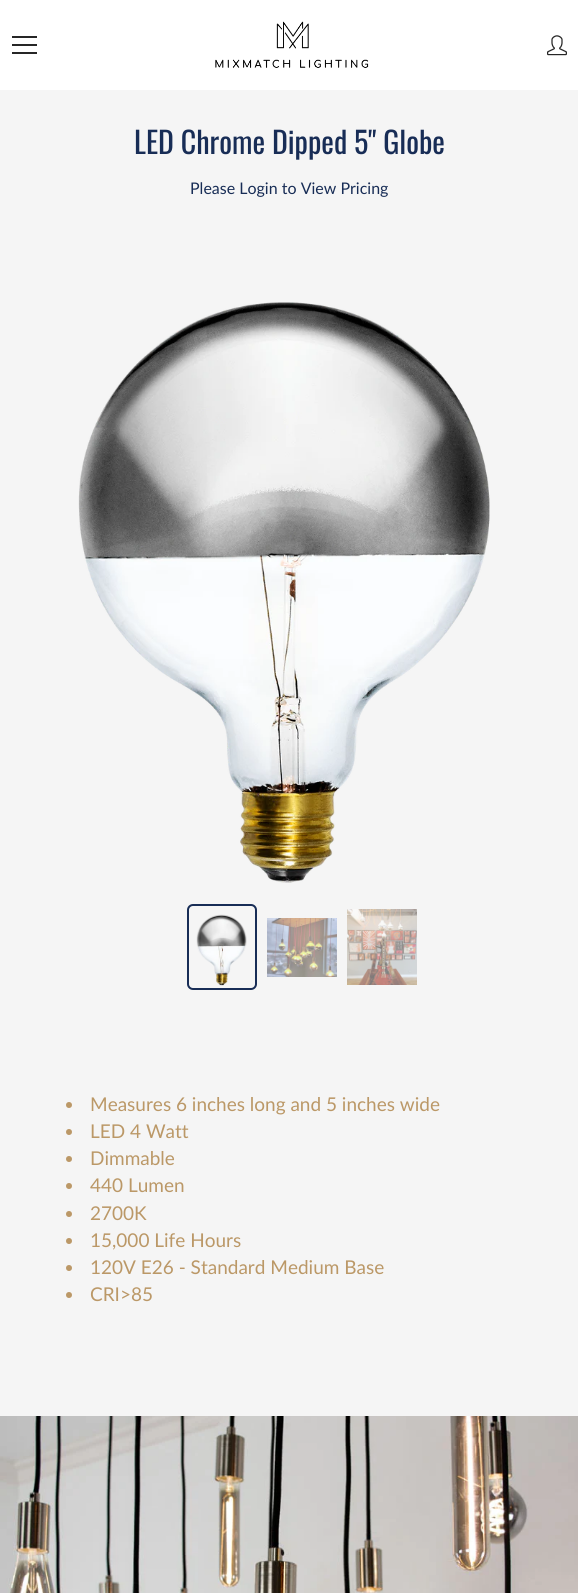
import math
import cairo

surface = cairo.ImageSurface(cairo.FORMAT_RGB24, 578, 1593)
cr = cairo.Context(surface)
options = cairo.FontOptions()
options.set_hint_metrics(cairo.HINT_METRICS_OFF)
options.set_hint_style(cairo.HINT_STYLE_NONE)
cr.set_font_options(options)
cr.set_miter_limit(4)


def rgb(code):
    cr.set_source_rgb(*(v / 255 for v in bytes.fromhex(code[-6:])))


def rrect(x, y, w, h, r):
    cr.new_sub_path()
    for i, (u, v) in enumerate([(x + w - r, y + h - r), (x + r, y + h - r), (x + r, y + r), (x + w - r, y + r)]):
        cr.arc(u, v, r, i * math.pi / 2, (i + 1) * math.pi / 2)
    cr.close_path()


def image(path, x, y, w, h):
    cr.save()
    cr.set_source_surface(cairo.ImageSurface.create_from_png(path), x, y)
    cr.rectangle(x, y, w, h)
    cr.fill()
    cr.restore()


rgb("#f5f5f5")
cr.paint()
for x, y, w, h, color in [
    (0, 0, 578, 90, "#ffffff"),
    (12, 44, 25, 2, "#262626"),
    (12, 36, 25, 2, "#262626"),
    (12, 52, 25, 2, "#262626"),
]:
    rgb(color)
    cr.rectangle(x, y, w, h)
    cr.fill()
image("img/1.png", 215, 21, 154, 47)
image("img/2.png", 547, 35, 20, 21)
image("img/3.png", 78, 302, 412, 581)
rrect(188, 905, 68, 84, 5)
rgb("#182d56")
cr.stroke()
image("img/4.png", 196, 914, 51, 72)
image("img/5.png", 267, 918, 70, 59)
image("img/6.png", 347, 909, 70, 76)
rgb("#bb9867")
cr.arc(69, 1105, 3, 0, 2 * math.pi)
cr.fill()
cr.arc(69, 1132, 3, 0, 2 * math.pi)
cr.fill()
cr.arc(69, 1159, 3, 0, 2 * math.pi)
cr.fill()
cr.arc(69, 1186, 3, 0, 2 * math.pi)
cr.fill()
cr.arc(69, 1214, 3, 0, 2 * math.pi)
cr.fill()
cr.arc(69, 1241, 3, 0, 2 * math.pi)
cr.fill()
cr.arc(69, 1268, 3, 0, 2 * math.pi)
cr.fill()
cr.arc(69, 1295, 3, 0, 2 * math.pi)
cr.fill()
image("img/7.png", 0, 1416, 578, 177)
cr.select_font_face("Oswald")
cr.set_font_size(30)
rgb("#182d56")
cr.move_to(134, 154)
cr.show_text("LED Chrome Dipped 5\" Globe")
cr.select_font_face("Lato")
cr.set_font_size(16)
cr.move_to(190, 194)
cr.show_text("Please Login to View Pricing")
cr.set_font_size(19)
rgb("#bb9867")
for x, y, s in [
    (90, 1111, "Measures 6 inches long and 5 inches wide"),
    (90, 1138, "LED 4 Watt"),
    (90, 1165, "Dimmable"),
    (90, 1192, "440 Lumen"),
    (90, 1220, "2700K"),
    (90, 1247, "15,000 Life Hours"),
    (90, 1274, "120V E26 - Standard Medium Base"),
    (90, 1301, "CRI>85"),
]:
    cr.move_to(x, y)
    cr.show_text(s)
surface.write_to_png("page.png")
